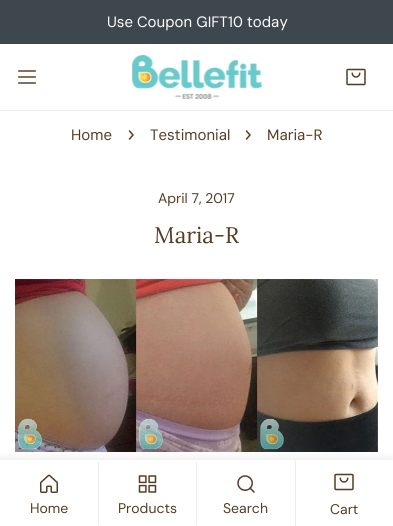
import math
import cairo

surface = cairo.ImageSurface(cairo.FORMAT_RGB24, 393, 526)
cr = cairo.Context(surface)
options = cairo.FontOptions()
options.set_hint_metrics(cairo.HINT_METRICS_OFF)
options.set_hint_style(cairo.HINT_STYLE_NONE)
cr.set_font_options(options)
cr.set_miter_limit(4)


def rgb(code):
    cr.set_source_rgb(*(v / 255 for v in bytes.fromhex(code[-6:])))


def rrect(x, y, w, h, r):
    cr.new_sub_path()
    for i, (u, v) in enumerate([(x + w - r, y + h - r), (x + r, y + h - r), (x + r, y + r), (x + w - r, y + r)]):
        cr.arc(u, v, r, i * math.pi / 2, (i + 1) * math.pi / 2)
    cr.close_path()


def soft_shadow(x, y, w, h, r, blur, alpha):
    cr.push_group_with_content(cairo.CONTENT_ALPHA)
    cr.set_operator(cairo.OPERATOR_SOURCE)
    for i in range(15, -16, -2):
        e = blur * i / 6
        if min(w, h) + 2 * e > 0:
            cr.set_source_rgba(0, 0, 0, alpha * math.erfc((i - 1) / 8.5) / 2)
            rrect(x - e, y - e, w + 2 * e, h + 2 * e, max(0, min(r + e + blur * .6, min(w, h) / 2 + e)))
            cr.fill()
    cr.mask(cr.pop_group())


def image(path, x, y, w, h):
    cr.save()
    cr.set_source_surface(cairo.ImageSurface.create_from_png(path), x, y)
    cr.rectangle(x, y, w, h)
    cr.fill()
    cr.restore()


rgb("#ffffff")
cr.paint()
rgb("#3e474e")
cr.rectangle(0, 0, 393, 44)
cr.fill()
rgb("#ededed")
cr.rectangle(0, 110, 393, 1)
cr.fill()
image("img/1.png", 18, 70, 18, 14)
image("img/2.png", 131, 55, 131, 44)
image("img/3.png", 346, 68, 20, 18)
cr.new_path()
cr.move_to(129.5, 131)
cr.line_to(133, 135)
cr.line_to(129.5, 139)
rgb("#563c22")
cr.set_line_width(1.5)
cr.set_line_cap(cairo.LINE_CAP_ROUND)
cr.set_line_join(cairo.LINE_JOIN_ROUND)
cr.stroke()
cr.new_path()
cr.move_to(246.5, 131)
cr.line_to(250, 135)
cr.line_to(246.5, 139)
cr.stroke()
image("img/4.png", 15, 279, 363, 173)
rgb("#000000")
soft_shadow(-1, 458, 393, 66, 0, 5, 0.08)
rgb("#ffffff")
cr.rectangle(0, 460, 393, 66)
cr.fill()
rgb("#ededed")
cr.rectangle(98, 462, 1, 63)
cr.fill()
image("img/5.png", 40, 474, 18, 19)
cr.rectangle(196, 462, 1, 63)
cr.fill()
image("img/6.png", 138, 475, 19, 18)
cr.rectangle(295, 460, 1, 66)
cr.fill()
image("img/7.png", 237, 475, 18, 18)
image("img/3.png", 334, 473, 20, 18)
cr.select_font_face("DM Sans")
cr.set_font_size(15)
rgb("#ffffff")
cr.move_to(107, 27)
cr.show_text("Use Coupon GIFT10 today")
rgb("#563c22")
for x, y, s in [
    (71, 140, "Home"),
    (150, 140, "Testimonial"),
    (267, 140, "Maria-R"),
]:
    cr.move_to(x, y)
    cr.show_text(s)
cr.select_font_face("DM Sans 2")
cr.set_font_size(14)
cr.move_to(158, 203)
cr.show_text("April 7, 2017")
cr.select_font_face("Lora")
cr.set_font_size(22.5)
cr.move_to(154, 243)
cr.show_text("Maria-R")
cr.select_font_face("DM Sans 2")
cr.set_font_size(14)
for x, y, s in [
    (30, 513, "Home"),
    (118, 513, "Products"),
    (223, 513, "Search"),
    (330, 514, "Cart"),
]:
    cr.move_to(x, y)
    cr.show_text(s)
surface.write_to_png("page.png")
